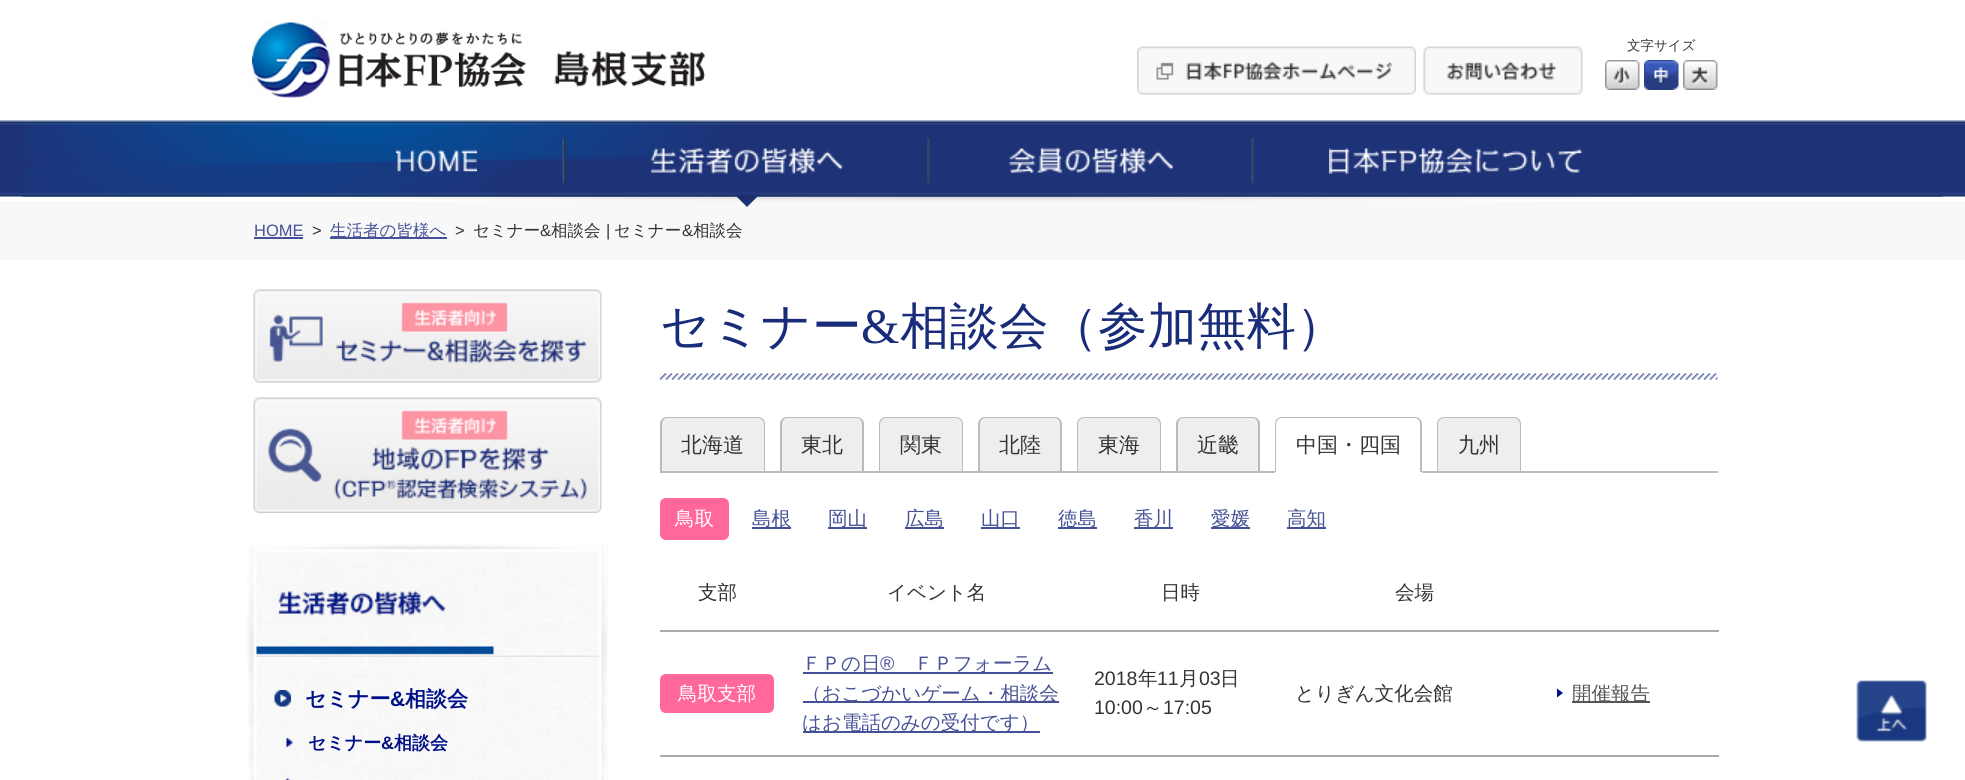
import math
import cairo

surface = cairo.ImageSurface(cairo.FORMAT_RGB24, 1965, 780)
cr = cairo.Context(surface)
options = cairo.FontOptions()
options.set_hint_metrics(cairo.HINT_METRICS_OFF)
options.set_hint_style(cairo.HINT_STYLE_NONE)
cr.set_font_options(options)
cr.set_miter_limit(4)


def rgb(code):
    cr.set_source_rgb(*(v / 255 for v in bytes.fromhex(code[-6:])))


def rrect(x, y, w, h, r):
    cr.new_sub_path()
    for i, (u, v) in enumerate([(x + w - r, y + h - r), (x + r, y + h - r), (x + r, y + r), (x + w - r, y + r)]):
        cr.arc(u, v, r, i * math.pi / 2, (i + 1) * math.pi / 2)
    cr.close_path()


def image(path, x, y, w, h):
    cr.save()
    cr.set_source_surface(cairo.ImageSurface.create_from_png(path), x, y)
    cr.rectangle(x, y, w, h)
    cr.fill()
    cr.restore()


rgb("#ffffff")
cr.paint()
image("img/1.png", 252, 22, 274, 76)
image("img/2.png", 1137, 46, 279, 49)
image("img/3.png", 1423, 46, 160, 49)
image("img/4.png", 1605, 60, 35, 30)
image("img/5.png", 1644, 60, 35, 30)
image("img/6.png", 1683, 60, 35, 30)
image("img/7.png", 554, 51, 151, 36)
image("img/8.png", 0, 120, 1965, 77)
image("img/9.png", 22, 121, 1921, 76)
image("img/10.png", 396, 149, 81, 24)
image("img/11.png", 562, 138, 4, 45)
image("img/12.png", 651, 147, 192, 27)
rgb("#f8f8f9")
cr.rectangle(0, 201, 1965, 59)
cr.fill()
rgb("#1e3278")
cr.new_path()
cr.move_to(733.5, 193.5)
cr.line_to(760.5, 193.5)
cr.line_to(747, 207)
cr.close_path()
cr.fill()
rgb("#314363")
cr.rectangle(927, 138, 3, 45)
cr.fill()
image("img/13.png", 1009, 147, 164, 27)
rgb("#314569")
cr.rectangle(1251, 138, 3, 45)
cr.fill()
image("img/14.png", 1329, 148, 254, 26)
image("img/15.png", 318, 196, 1320, 6)
rgb("#455197")
cr.rectangle(254, 237, 49, 2)
cr.fill()
cr.rectangle(330, 237, 117, 2)
cr.fill()
image("img/16.png", 253, 289, 349, 94)
image("img/17.png", 253, 397, 349, 116)
image("img/18.png", 247, 543, 361, 237)
image("img/19.png", 247, 543, 360, 114)
image("img/20.png", 248, 672, 359, 108)
image("img/21.png", 274, 690, 17, 17)
image("img/22.png", 286, 738, 7, 9)
image("img/23.png", 286, 778, 5, 2)
image("img/24.png", 660, 373, 1058, 7)
rgb("#bbbbbb")
cr.rectangle(660, 471, 1058, 2)
cr.fill()
rgb("#eeeeee")
cr.new_path()
cr.move_to(668, 417)
cr.line_to(757, 417)
cr.curve_to(761.5, 417, 765, 420.5, 765, 425)
cr.line_to(765, 471)
cr.line_to(660, 471)
cr.line_to(660, 425)
cr.curve_to(660, 420.5, 663.5, 417, 668, 417)
cr.close_path()
cr.fill()
rgb("#bbbbbb")
cr.set_fill_rule(cairo.FILL_RULE_EVEN_ODD)
cr.new_path()
cr.move_to(668, 417)
cr.line_to(758, 417)
cr.curve_to(762, 417, 765, 420, 765, 424)
cr.line_to(765, 471)
cr.line_to(660, 471)
cr.line_to(660, 424)
cr.curve_to(660, 420, 663, 417, 668, 417)
cr.close_path()
cr.move_to(668, 418)
cr.line_to(758, 418)
cr.curve_to(761, 418, 764, 421, 764, 424)
cr.line_to(764, 471)
cr.line_to(662, 471)
cr.line_to(662, 424)
cr.curve_to(662, 421, 664, 418, 668, 418)
cr.close_path()
cr.fill()
rgb("#eeeeee")
cr.new_path()
cr.move_to(788, 417)
cr.line_to(856, 417)
cr.curve_to(860.5, 417, 864, 420.5, 864, 425)
cr.line_to(864, 471)
cr.line_to(780, 471)
cr.line_to(780, 425)
cr.curve_to(780, 420.5, 783.5, 417, 788, 417)
cr.close_path()
cr.fill()
rgb("#bbbbbb")
cr.new_path()
cr.move_to(788, 417)
cr.line_to(856, 417)
cr.curve_to(861, 417, 864, 420, 864, 424)
cr.line_to(864, 471)
cr.line_to(780, 471)
cr.line_to(780, 424)
cr.curve_to(780, 420, 783, 417, 788, 417)
cr.close_path()
cr.move_to(788, 418)
cr.line_to(856, 418)
cr.curve_to(860, 418, 862, 421, 862, 424)
cr.line_to(862, 471)
cr.line_to(782, 471)
cr.line_to(782, 424)
cr.curve_to(782, 421, 784, 418, 788, 418)
cr.close_path()
cr.fill()
rgb("#eeeeee")
cr.new_path()
cr.move_to(887, 417)
cr.line_to(955, 417)
cr.curve_to(959.5, 417, 963, 420.5, 963, 425)
cr.line_to(963, 471)
cr.line_to(879, 471)
cr.line_to(879, 425)
cr.curve_to(879, 420.5, 882.5, 417, 887, 417)
cr.close_path()
cr.fill()
rgb("#bbbbbb")
cr.new_path()
cr.move_to(886, 417)
cr.line_to(956, 417)
cr.curve_to(960, 417, 963, 420, 963, 424)
cr.line_to(963, 471)
cr.line_to(879, 471)
cr.line_to(879, 424)
cr.curve_to(879, 420, 882, 417, 886, 417)
cr.close_path()
cr.move_to(886, 418)
cr.line_to(956, 418)
cr.curve_to(959, 418, 962, 421, 962, 424)
cr.line_to(962, 471)
cr.line_to(880, 471)
cr.line_to(880, 424)
cr.curve_to(880, 421, 883, 418, 886, 418)
cr.close_path()
cr.fill()
rgb("#eeeeee")
cr.new_path()
cr.move_to(986, 417)
cr.line_to(1054, 417)
cr.curve_to(1058.5, 417, 1062, 420.5, 1062, 425)
cr.line_to(1062, 471)
cr.line_to(978, 471)
cr.line_to(978, 425)
cr.curve_to(978, 420.5, 981.5, 417, 986, 417)
cr.close_path()
cr.fill()
rgb("#bbbbbb")
cr.new_path()
cr.move_to(986, 417)
cr.line_to(1054, 417)
cr.curve_to(1059, 417, 1062, 420, 1062, 424)
cr.line_to(1062, 471)
cr.line_to(978, 471)
cr.line_to(978, 424)
cr.curve_to(978, 420, 981, 417, 986, 417)
cr.close_path()
cr.move_to(986, 418)
cr.line_to(1054, 418)
cr.curve_to(1058, 418, 1060, 421, 1060, 424)
cr.line_to(1060, 471)
cr.line_to(980, 471)
cr.line_to(980, 424)
cr.curve_to(980, 421, 982, 418, 986, 418)
cr.close_path()
cr.fill()
rgb("#eeeeee")
cr.new_path()
cr.move_to(1085, 417)
cr.line_to(1153, 417)
cr.curve_to(1157.5, 417, 1161, 420.5, 1161, 425)
cr.line_to(1161, 471)
cr.line_to(1077, 471)
cr.line_to(1077, 425)
cr.curve_to(1077, 420.5, 1080.5, 417, 1085, 417)
cr.close_path()
cr.fill()
rgb("#bbbbbb")
cr.new_path()
cr.move_to(1084, 417)
cr.line_to(1154, 417)
cr.curve_to(1158, 417, 1161, 420, 1161, 424)
cr.line_to(1161, 471)
cr.line_to(1077, 471)
cr.line_to(1077, 424)
cr.curve_to(1077, 420, 1080, 417, 1084, 417)
cr.close_path()
cr.move_to(1084, 418)
cr.line_to(1154, 418)
cr.curve_to(1157, 418, 1160, 421, 1160, 424)
cr.line_to(1160, 471)
cr.line_to(1078, 471)
cr.line_to(1078, 424)
cr.curve_to(1078, 421, 1081, 418, 1084, 418)
cr.close_path()
cr.fill()
rgb("#eeeeee")
cr.new_path()
cr.move_to(1184, 417)
cr.line_to(1252, 417)
cr.curve_to(1256.5, 417, 1260, 420.5, 1260, 425)
cr.line_to(1260, 471)
cr.line_to(1176, 471)
cr.line_to(1176, 425)
cr.curve_to(1176, 420.5, 1179.5, 417, 1184, 417)
cr.close_path()
cr.fill()
rgb("#bbbbbb")
cr.new_path()
cr.move_to(1184, 417)
cr.line_to(1252, 417)
cr.curve_to(1257, 417, 1260, 420, 1260, 424)
cr.line_to(1260, 471)
cr.line_to(1176, 471)
cr.line_to(1176, 424)
cr.curve_to(1176, 420, 1179, 417, 1184, 417)
cr.close_path()
cr.move_to(1184, 418)
cr.line_to(1252, 418)
cr.curve_to(1256, 418, 1258, 421, 1258, 424)
cr.line_to(1258, 471)
cr.line_to(1178, 471)
cr.line_to(1178, 424)
cr.curve_to(1178, 421, 1180, 418, 1184, 418)
cr.close_path()
cr.fill()
rgb("#ffffff")
cr.new_path()
cr.move_to(1283, 417)
cr.line_to(1414, 417)
cr.curve_to(1418.5, 417, 1422, 420.5, 1422, 425)
cr.line_to(1422, 473)
cr.line_to(1275, 473)
cr.line_to(1275, 425)
cr.curve_to(1275, 420.5, 1278.5, 417, 1283, 417)
cr.close_path()
cr.fill()
rgb("#bbbbbb")
cr.new_path()
cr.move_to(1282, 417)
cr.line_to(1414, 417)
cr.curve_to(1419, 417, 1422, 420, 1422, 424)
cr.line_to(1422, 472)
cr.line_to(1275, 472)
cr.line_to(1275, 424)
cr.curve_to(1275, 420, 1278, 417, 1282, 417)
cr.close_path()
cr.move_to(1282, 418)
cr.line_to(1414, 418)
cr.curve_to(1418, 418, 1420, 421, 1420, 424)
cr.line_to(1420, 472)
cr.line_to(1276, 472)
cr.line_to(1276, 424)
cr.curve_to(1276, 421, 1279, 418, 1282, 418)
cr.close_path()
cr.fill()
rgb("#eeeeee")
cr.new_path()
cr.move_to(1445, 417)
cr.line_to(1513, 417)
cr.curve_to(1517.5, 417, 1521, 420.5, 1521, 425)
cr.line_to(1521, 471)
cr.line_to(1437, 471)
cr.line_to(1437, 425)
cr.curve_to(1437, 420.5, 1440.5, 417, 1445, 417)
cr.close_path()
cr.fill()
rgb("#bbbbbb")
cr.new_path()
cr.move_to(1444, 417)
cr.line_to(1514, 417)
cr.curve_to(1518, 417, 1521, 420, 1521, 424)
cr.line_to(1521, 471)
cr.line_to(1437, 471)
cr.line_to(1437, 424)
cr.curve_to(1437, 420, 1440, 417, 1444, 417)
cr.close_path()
cr.move_to(1444, 418)
cr.line_to(1514, 418)
cr.curve_to(1517, 418, 1520, 421, 1520, 424)
cr.line_to(1520, 471)
cr.line_to(1438, 471)
cr.line_to(1438, 424)
cr.curve_to(1438, 421, 1441, 418, 1444, 418)
cr.close_path()
cr.fill()
rgb("#ff679d")
rrect(660, 498, 69, 42, 6)
cr.fill()
for x, y, w, h, color in [
    (752, 527, 39, 2, "#455197"),
    (828, 527, 39, 2, "#455197"),
    (905, 527, 39, 2, "#455197"),
    (981, 527, 39, 2, "#455197"),
    (1058, 527, 39, 2, "#455197"),
    (1134, 527, 39, 2, "#455197"),
    (1211, 527, 39, 2, "#455197"),
    (1287, 527, 39, 2, "#455197"),
    (660, 630, 1059, 2, "#aaaaaa"),
]:
    rgb(color)
    cr.rectangle(x, y, w, h)
    cr.fill()
rgb("#ff679d")
rrect(660, 674, 114, 39, 6)
cr.fill()
for x, y, w, h, color in [
    (803, 672, 250, 2, "#455197"),
    (803, 701, 256, 2, "#455197"),
    (803, 731, 237, 2, "#455197"),
    (660, 755, 1059, 2, "#aaaaaa"),
]:
    rgb(color)
    cr.rectangle(x, y, w, h)
    cr.fill()
rgb("#001087")
cr.set_fill_rule(cairo.FILL_RULE_WINDING)
cr.new_path()
cr.move_to(1557, 697.5)
cr.line_to(1557, 688.5)
cr.line_to(1563, 693)
cr.close_path()
cr.fill()
rgb("#555555")
cr.rectangle(1572, 701, 78, 2)
cr.fill()
image("img/25.png", 1856, 680, 71, 62)
cr.select_font_face("WenQuanYi Zen Hei Medium")
cr.set_font_size(13.5)
rgb("#333333")
cr.move_to(1627, 50)
cr.show_text("文字サイズ")
cr.select_font_face("Liberation Sans")
cr.set_font_size(16.5)
rgb("#455197")
cr.move_to(254, 236)
cr.show_text("HOME")
rgb("#333333")
cr.move_to(312, 236)
cr.show_text(">")
cr.select_font_face("WenQuanYi Zen Hei Medium")
rgb("#455197")
cr.move_to(330, 236)
cr.show_text("生活者の皆様へ")
cr.select_font_face("Liberation Sans")
rgb("#333333")
cr.move_to(455, 236)
cr.show_text(">")
cr.select_font_face("WenQuanYi Zen Hei Medium")
cr.move_to(473, 236)
cr.show_text("セミナー")
cr.select_font_face("Liberation Sans")
cr.move_to(540, 236)
cr.show_text("&")
cr.select_font_face("WenQuanYi Zen Hei Medium")
cr.move_to(551, 236)
cr.show_text("相談会")
cr.select_font_face("Liberation Sans")
cr.move_to(606, 236)
cr.show_text("|")
cr.select_font_face("WenQuanYi Zen Hei Medium")
cr.move_to(614, 236)
cr.show_text("セミナー")
cr.select_font_face("Liberation Sans")
cr.move_to(682, 236)
cr.show_text("&")
cr.select_font_face("WenQuanYi Zen Hei Medium")
cr.move_to(693, 236)
cr.show_text("相談会")
cr.select_font_face("WenQuanYi Zen Hei", cairo.FONT_SLANT_NORMAL, cairo.FONT_WEIGHT_BOLD)
cr.set_font_size(21)
rgb("#001086")
cr.move_to(305, 706)
cr.show_text("セミナー")
cr.select_font_face("Liberation Sans", cairo.FONT_SLANT_NORMAL, cairo.FONT_WEIGHT_BOLD)
cr.move_to(390, 706)
cr.show_text("&")
cr.select_font_face("WenQuanYi Zen Hei", cairo.FONT_SLANT_NORMAL, cairo.FONT_WEIGHT_BOLD)
cr.move_to(405, 706)
cr.show_text("相談会")
cr.set_font_size(18)
cr.move_to(308, 749)
cr.show_text("セミナー")
cr.select_font_face("Liberation Sans", cairo.FONT_SLANT_NORMAL, cairo.FONT_WEIGHT_BOLD)
cr.move_to(381, 749)
cr.show_text("&")
cr.select_font_face("WenQuanYi Zen Hei", cairo.FONT_SLANT_NORMAL, cairo.FONT_WEIGHT_BOLD)
cr.move_to(394, 749)
cr.show_text("相談会")
cr.select_font_face("WenQuanYi Zen Hei Medium")
cr.set_font_size(49.5)
rgb("#192c79")
cr.move_to(660, 343)
cr.show_text("セミナー")
cr.select_font_face("Liberation Serif")
cr.move_to(861, 343)
cr.show_text("&")
cr.select_font_face("WenQuanYi Zen Hei Medium")
cr.move_to(900, 343)
cr.show_text("相談会（参加無料）")
cr.set_font_size(21)
rgb("#333333")
for x, y, s in [
    (681, 452, "北海道"),
    (801, 452, "東北"),
    (900, 452, "関東"),
    (999, 452, "北陸"),
    (1098, 452, "東海"),
    (1197, 452, "近畿"),
    (1296, 452, "中国・四国"),
    (1458, 452, "九州"),
]:
    cr.move_to(x, y)
    cr.show_text(s)
cr.set_font_size(19.5)
rgb("#ffffff")
cr.move_to(675, 525)
cr.show_text("鳥取")
rgb("#455197")
for x, y, s in [
    (752, 525, "島根"),
    (828, 525, "岡山"),
    (905, 525, "広島"),
    (981, 525, "山口"),
    (1058, 525, "徳島"),
    (1134, 525, "香川"),
    (1211, 525, "愛媛"),
    (1287, 525, "高知"),
]:
    cr.move_to(x, y)
    cr.show_text(s)
rgb("#333333")
for x, y, s in [
    (698, 599, "支部"),
    (887, 599, "イベント名"),
    (1161, 599, "日時"),
    (1395, 599, "会場"),
]:
    cr.move_to(x, y)
    cr.show_text(s)
rgb("#ffffff")
cr.move_to(678, 700)
cr.show_text("鳥取支部")
rgb("#455197")
cr.move_to(802, 670)
cr.show_text("ＦＰの日")
cr.select_font_face("Liberation Sans")
cr.move_to(880, 670)
cr.show_text("®")
cr.select_font_face("WenQuanYi Zen Hei Medium")
for x, y, s in [
    (914, 670, "ＦＰフォーラム"),
    (802, 700, "（おこづかいゲーム・相談会"),
    (802, 729, "はお電話のみの受付です）"),
]:
    cr.move_to(x, y)
    cr.show_text(s)
cr.select_font_face("Liberation Sans")
rgb("#333333")
cr.move_to(1094, 685)
cr.show_text("2018")
cr.select_font_face("WenQuanYi Zen Hei Medium")
cr.move_to(1138, 685)
cr.show_text("年")
cr.select_font_face("Liberation Sans")
cr.move_to(1157, 685)
cr.show_text("11")
cr.select_font_face("WenQuanYi Zen Hei Medium")
cr.move_to(1179, 685)
cr.show_text("月")
cr.select_font_face("Liberation Sans")
cr.move_to(1199, 685)
cr.show_text("03")
cr.select_font_face("WenQuanYi Zen Hei Medium")
cr.move_to(1220, 685)
cr.show_text("日")
cr.select_font_face("Liberation Sans")
cr.move_to(1094, 714)
cr.show_text("10:00")
cr.select_font_face("WenQuanYi Zen Hei Medium")
cr.move_to(1143, 714)
cr.show_text("～")
cr.select_font_face("Liberation Sans")
cr.move_to(1163, 714)
cr.show_text("17:05")
cr.select_font_face("WenQuanYi Zen Hei Medium")
cr.move_to(1295, 700)
cr.show_text("とりぎん文化会館")
rgb("#555555")
cr.move_to(1572, 700)
cr.show_text("開催報告")
surface.write_to_png("page.png")
